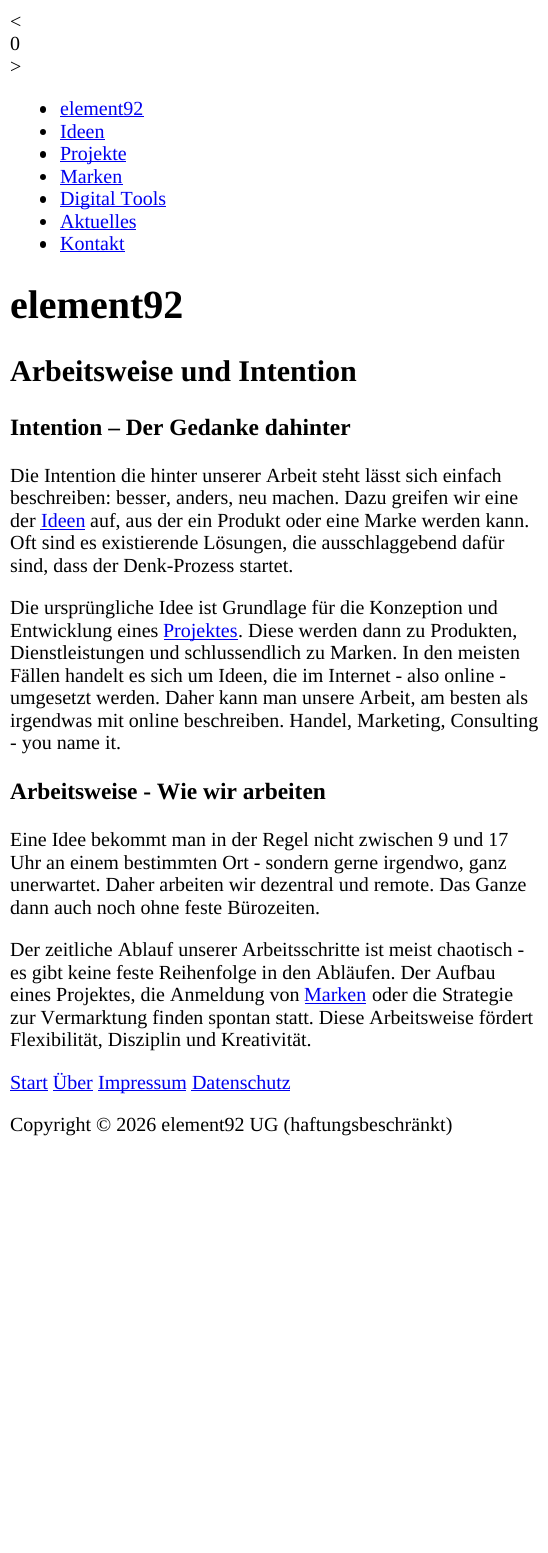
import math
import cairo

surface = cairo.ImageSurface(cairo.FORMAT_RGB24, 548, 1553)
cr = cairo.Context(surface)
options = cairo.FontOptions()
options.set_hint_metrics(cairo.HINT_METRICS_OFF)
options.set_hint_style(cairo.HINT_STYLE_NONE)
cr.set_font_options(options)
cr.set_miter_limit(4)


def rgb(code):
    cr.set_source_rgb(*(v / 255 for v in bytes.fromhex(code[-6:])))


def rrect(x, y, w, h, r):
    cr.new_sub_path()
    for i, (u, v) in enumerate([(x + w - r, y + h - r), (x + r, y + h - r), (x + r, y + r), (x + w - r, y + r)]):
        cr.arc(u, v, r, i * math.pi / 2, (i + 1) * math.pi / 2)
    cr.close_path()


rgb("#ffffff")
cr.paint()
rgb("#000000")
rrect(40, 106, 6, 7, 3)
cr.fill()
rgb("#0000ee")
cr.rectangle(60, 116, 84, 1)
cr.fill()
rgb("#000000")
cr.arc(43, 132, 3, 0, 2 * math.pi)
cr.fill()
rgb("#0000ee")
cr.rectangle(60, 139, 45, 1)
cr.fill()
rgb("#000000")
rrect(40, 151, 6, 7, 3)
cr.fill()
rgb("#0000ee")
cr.rectangle(60, 161, 66, 1)
cr.fill()
rgb("#000000")
cr.arc(43, 177, 3, 0, 2 * math.pi)
cr.fill()
rgb("#0000ee")
cr.rectangle(60, 184, 63, 1)
cr.fill()
rgb("#000000")
rrect(40, 196, 6, 7, 3)
cr.fill()
rgb("#0000ee")
cr.rectangle(60, 206, 106, 1)
cr.fill()
rgb("#000000")
cr.arc(43, 222, 3, 0, 2 * math.pi)
cr.fill()
rgb("#0000ee")
cr.rectangle(60, 229, 76, 1)
cr.fill()
rgb("#000000")
rrect(40, 241, 6, 7, 3)
cr.fill()
for x, y, w, h, color in [
    (60, 251, 65, 1, "#0000ee"),
    (40, 529, 45, 1, "#0000ee"),
    (164, 639, 74, 1, "#0000ee"),
    (305, 1003, 61, 1, "#0000ee"),
    (10, 1090, 38, 1, "#0000ee"),
    (98, 1090, 88, 1, "#0000ee"),
    (53, 1090, 40, 1, "#0000ee"),
    (191, 1090, 99, 1, "#0000ee"),
]:
    rgb(color)
    cr.rectangle(x, y, w, h)
    cr.fill()
cr.select_font_face("Liberation Serif")
cr.set_font_size(20)
rgb("#000000")
for x, y, s in [
    (10, 28, "<"),
    (10, 50, "0"),
    (10, 73, ">"),
]:
    cr.move_to(x, y)
    cr.show_text(s)
rgb("#0000ee")
for x, y, s in [
    (60, 115, "element92"),
    (60, 138, "Ideen"),
    (60, 160, "Projekte"),
    (60, 183, "Marken"),
    (60, 205, "Digital Tools"),
    (60, 228, "Aktuelles"),
    (60, 250, "Kontakt"),
]:
    cr.move_to(x, y)
    cr.show_text(s)
cr.select_font_face("Liberation Serif", cairo.FONT_SLANT_NORMAL, cairo.FONT_WEIGHT_BOLD)
cr.set_font_size(40)
rgb("#000000")
cr.move_to(10, 318)
cr.show_text("element92")
cr.set_font_size(30)
cr.move_to(10, 381)
cr.show_text("Arbeitsweise und Intention")
cr.set_font_size(23.4)
cr.move_to(10, 435)
cr.show_text("Intention – Der Gedanke dahinter")
cr.select_font_face("Liberation Serif")
cr.set_font_size(20)
for x, y, s in [
    (10, 482, "Die Intention die hinter unserer Arbeit steht lässt sich einfach"),
    (10, 504, "beschreiben: besser, anders, neu machen. Dazu greifen wir eine"),
    (10, 527, "der"),
]:
    cr.move_to(x, y)
    cr.show_text(s)
rgb("#0000ee")
cr.move_to(41, 527)
cr.show_text("Ideen")
rgb("#000000")
for x, y, s in [
    (90, 527, "auf, aus der ein Produkt oder eine Marke werden kann."),
    (10, 549, "Oft sind es existierende Lösungen, die ausschlaggebend dafür"),
    (10, 572, "sind, dass der Denk-Prozess startet."),
    (10, 614, "Die ursprüngliche Idee ist Grundlage für die Konzeption und"),
    (10, 637, "Entwicklung eines"),
]:
    cr.move_to(x, y)
    cr.show_text(s)
rgb("#0000ee")
cr.move_to(163, 637)
cr.show_text("Projektes")
rgb("#000000")
for x, y, s in [
    (238, 637, ". Diese werden dann zu Produkten,"),
    (10, 659, "Dienstleistungen und schlussendlich zu Marken. In den meisten"),
    (10, 682, "Fällen handelt es sich um Ideen, die im Internet - also online -"),
    (10, 704, "umgesetzt werden. Daher kann man unsere Arbeit, am besten als"),
    (10, 727, "irgendwas mit online beschreiben. Handel, Marketing, Consulting"),
    (10, 749, "- you name it."),
]:
    cr.move_to(x, y)
    cr.show_text(s)
cr.select_font_face("Liberation Serif", cairo.FONT_SLANT_NORMAL, cairo.FONT_WEIGHT_BOLD)
cr.set_font_size(23.4)
cr.move_to(10, 799)
cr.show_text("Arbeitsweise - Wie wir arbeiten")
cr.select_font_face("Liberation Serif")
cr.set_font_size(20)
for x, y, s in [
    (10, 846, "Eine Idee bekommt man in der Regel nicht zwischen 9 und 17"),
    (10, 869, "Uhr an einem bestimmten Ort - sondern gerne irgendwo, ganz"),
    (10, 891, "unerwartet. Daher arbeiten wir dezentral und remote. Das Ganze"),
    (10, 914, "dann auch noch ohne feste Bürozeiten."),
    (10, 956, "Der zeitliche Ablauf unserer Arbeitsschritte ist meist chaotisch -"),
    (10, 979, "es gibt keine feste Reihenfolge in den Abläufen. Der Aufbau"),
    (10, 1001, "eines Projektes, die Anmeldung von"),
]:
    cr.move_to(x, y)
    cr.show_text(s)
rgb("#0000ee")
cr.move_to(304, 1001)
cr.show_text("Marken")
rgb("#000000")
for x, y, s in [
    (372, 1001, "oder die Strategie"),
    (10, 1024, "zur Vermarktung finden spontan statt. Diese Arbeitsweise fördert"),
    (10, 1046, "Flexibilität, Disziplin und Kreativität."),
]:
    cr.move_to(x, y)
    cr.show_text(s)
rgb("#0000ee")
cr.move_to(10, 1089)
cr.show_text("Start Über")
cr.move_to(98, 1089)
cr.show_text("Impressum Datenschutz")
rgb("#000000")
cr.move_to(10, 1131)
cr.show_text("Copyright © 2026 element92 UG (haftungsbeschränkt)")
surface.write_to_png("page.png")
